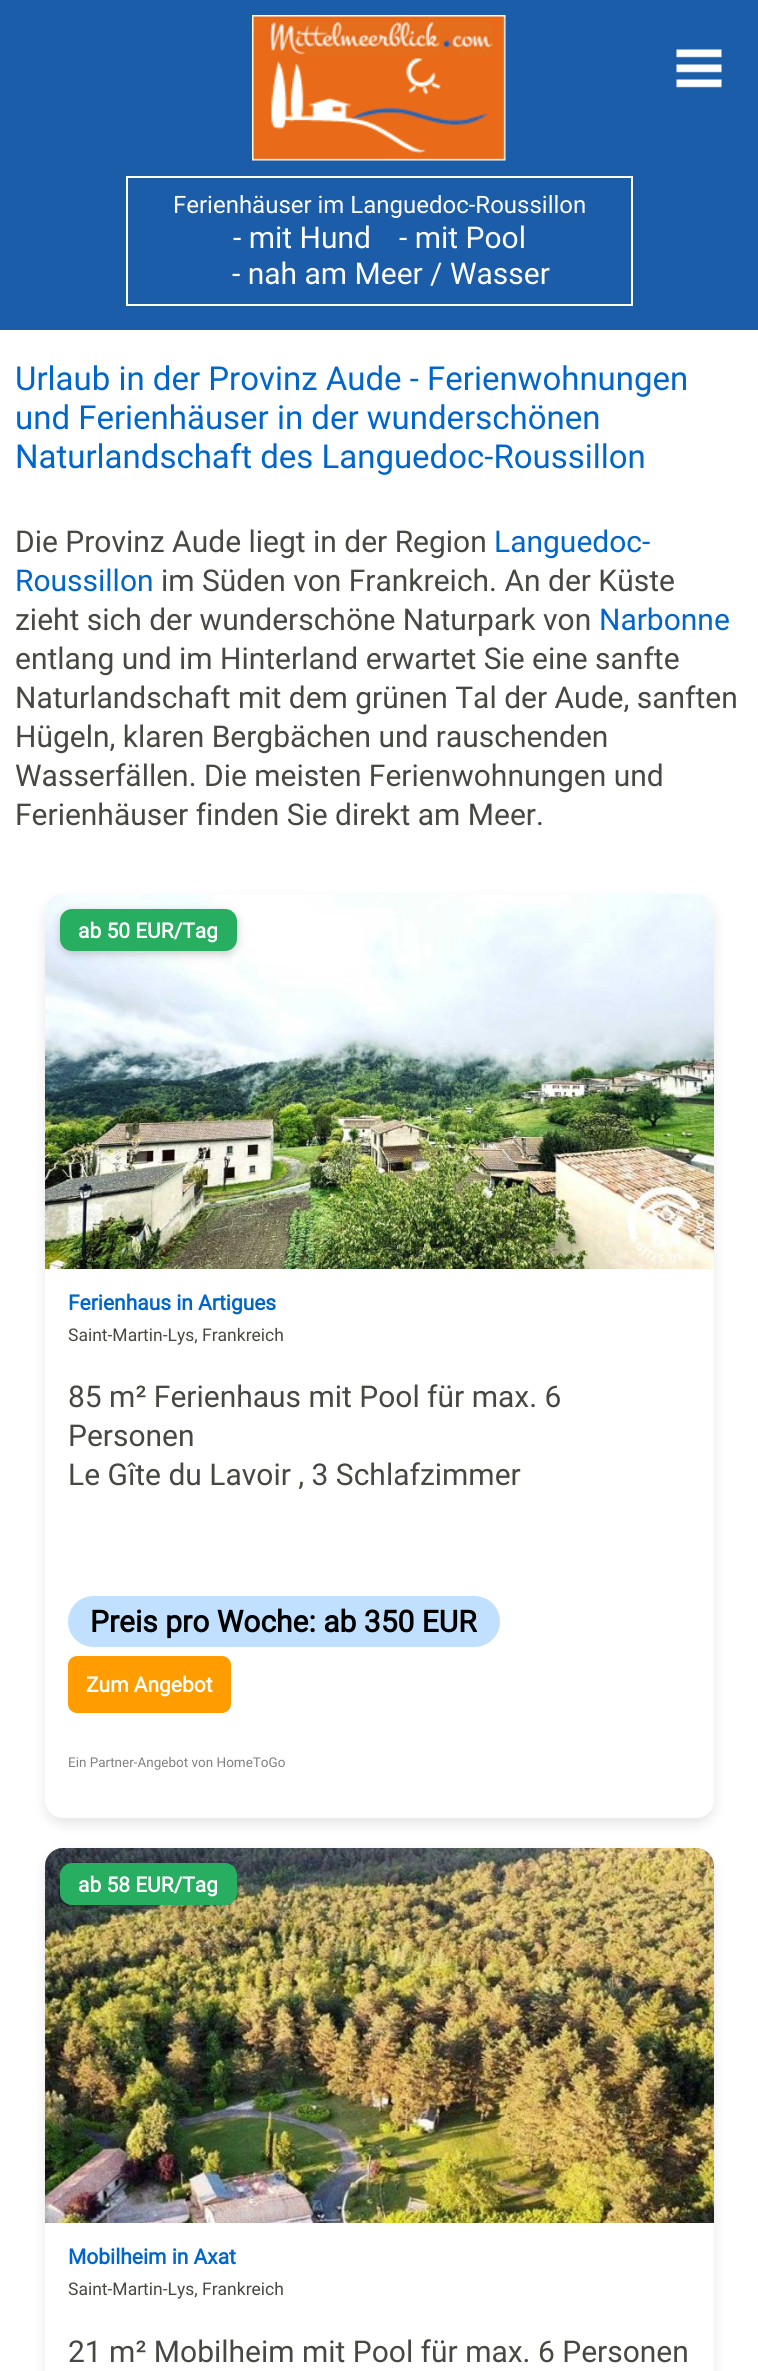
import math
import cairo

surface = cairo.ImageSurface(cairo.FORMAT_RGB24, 758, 2371)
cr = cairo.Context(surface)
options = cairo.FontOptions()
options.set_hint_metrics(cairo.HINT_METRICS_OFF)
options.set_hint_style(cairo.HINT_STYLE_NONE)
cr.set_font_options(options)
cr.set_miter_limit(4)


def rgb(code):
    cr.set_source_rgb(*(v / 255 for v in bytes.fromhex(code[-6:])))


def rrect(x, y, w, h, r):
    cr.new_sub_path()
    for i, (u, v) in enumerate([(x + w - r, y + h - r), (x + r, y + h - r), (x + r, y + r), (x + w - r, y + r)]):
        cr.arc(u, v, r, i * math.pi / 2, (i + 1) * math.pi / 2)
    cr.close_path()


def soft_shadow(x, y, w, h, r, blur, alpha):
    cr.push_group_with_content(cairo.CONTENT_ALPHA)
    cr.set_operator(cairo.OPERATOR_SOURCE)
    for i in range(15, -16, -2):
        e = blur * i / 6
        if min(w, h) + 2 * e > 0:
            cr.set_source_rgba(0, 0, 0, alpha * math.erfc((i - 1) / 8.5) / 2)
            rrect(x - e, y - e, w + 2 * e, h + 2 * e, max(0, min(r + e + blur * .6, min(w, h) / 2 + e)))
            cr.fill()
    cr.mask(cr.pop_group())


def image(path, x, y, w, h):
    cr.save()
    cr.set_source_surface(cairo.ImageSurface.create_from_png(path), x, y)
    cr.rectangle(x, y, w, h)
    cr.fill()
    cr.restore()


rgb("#ffffff")
cr.paint()
rgb("#1c5da9")
cr.rectangle(0, 0, 758, 330)
cr.fill()
image("img/1.png", 676, 49, 46, 39)
image("img/2.png", 252, 15, 254, 146)
cr.rectangle(127, 177, 505, 128)
rgb("#ffffff")
cr.stroke()
rgb("#000000")
soft_shadow(45, 900, 669, 924, 18, 6, 0.1)
rgb("#ffffff")
rrect(45, 894, 669, 924, 18)
cr.fill()
image("img/3.png", 45, 894, 669, 375)
rgb("#000000")
soft_shadow(60, 912, 177, 42, 12, 4.5, 0.2)
rgb("#27ae60")
rrect(60, 909, 177, 42, 12)
cr.fill()
rgb("#c1e0ff")
rrect(68, 1596, 432, 51, 25.5)
cr.fill()
rgb("#ff9d00")
rrect(68, 1656, 163, 57, 9)
cr.fill()
rgb("#000000")
soft_shadow(45, 1854, 669, 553, 18, 6, 0.1)
rgb("#ffffff")
rrect(45, 1848, 669, 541, 18)
cr.fill()
image("img/4.png", 45, 1848, 669, 375)
rgb("#000000")
soft_shadow(60, 1866, 177, 42, 12, 4.5, 0.2)
rgb("#27ae60")
rrect(60, 1863, 177, 42, 12)
cr.fill()
cr.select_font_face("Roboto")
cr.set_font_size(24)
rgb("#ffffff")
cr.move_to(173, 213)
cr.show_text("Ferienhäuser im Languedoc-Roussillon")
cr.set_font_size(30)
for x, y, s in [
    (233, 248, "- mit Hund"),
    (399, 248, "- mit Pool"),
    (232, 284, "- nah am Meer / Wasser"),
]:
    cr.move_to(x, y)
    cr.show_text(s)
cr.set_font_size(33)
rgb("#0066cc")
for x, y, s in [
    (15, 390, "Urlaub in der Provinz Aude - Ferienwohnungen"),
    (15, 429, "und Ferienhäuser in der wunderschönen"),
    (15, 468, "Naturlandschaft des Languedoc-Roussillon"),
]:
    cr.move_to(x, y)
    cr.show_text(s)
cr.set_font_size(30)
rgb("#484843")
cr.move_to(15, 552)
cr.show_text("Die Provinz Aude liegt in der Region")
rgb("#0066cc")
cr.move_to(494, 552)
cr.show_text("Languedoc-")
cr.move_to(15, 591)
cr.show_text("Roussillon")
rgb("#484843")
cr.move_to(161, 591)
cr.show_text("im Süden von Frankreich. An der Küste")
cr.move_to(15, 630)
cr.show_text("zieht sich der wunderschöne Naturpark von")
rgb("#0066cc")
cr.move_to(599, 630)
cr.show_text("Narbonne")
rgb("#484843")
for x, y, s in [
    (15, 669, "entlang und im Hinterland erwartet Sie eine sanfte"),
    (15, 708, "Naturlandschaft mit dem grünen Tal der Aude, sanften"),
    (15, 747, "Hügeln, klaren Bergbächen und rauschenden"),
    (15, 786, "Wasserfällen. Die meisten Ferienwohnungen und"),
    (15, 825, "Ferienhäuser finden Sie direkt am Meer."),
]:
    cr.move_to(x, y)
    cr.show_text(s)
cr.select_font_face("Roboto", cairo.FONT_SLANT_NORMAL, cairo.FONT_WEIGHT_BOLD)
cr.set_font_size(21)
rgb("#ffffff")
cr.move_to(78, 938)
cr.show_text("ab 50 EUR/Tag")
rgb("#0066cc")
cr.move_to(68, 1310)
cr.show_text("Ferienhaus in Artigues")
cr.select_font_face("Roboto")
cr.set_font_size(17.5)
rgb("#484843")
cr.move_to(68, 1341)
cr.show_text("Saint-Martin-Lys, Frankreich")
cr.set_font_size(30)
for x, y, s in [
    (68, 1407, "85 m² Ferienhaus mit Pool für max. 6"),
    (68, 1446, "Personen"),
    (68, 1485, "Le Gîte du Lavoir , 3 Schlafzimmer"),
]:
    cr.move_to(x, y)
    cr.show_text(s)
cr.select_font_face("Roboto", cairo.FONT_SLANT_NORMAL, cairo.FONT_WEIGHT_BOLD)
rgb("#000000")
cr.move_to(90, 1632)
cr.show_text("Preis pro Woche: ab 350 EUR")
cr.set_font_size(21)
rgb("#ffffff")
cr.move_to(86, 1692)
cr.show_text("Zum Angebot")
cr.select_font_face("Roboto")
cr.set_font_size(13.5)
rgb("#808080")
cr.move_to(68, 1767)
cr.show_text("Ein Partner-Angebot von HomeToGo")
cr.select_font_face("Roboto", cairo.FONT_SLANT_NORMAL, cairo.FONT_WEIGHT_BOLD)
cr.set_font_size(21)
rgb("#ffffff")
cr.move_to(78, 1892)
cr.show_text("ab 58 EUR/Tag")
rgb("#0066cc")
cr.move_to(68, 2264)
cr.show_text("Mobilheim in Axat")
cr.select_font_face("Roboto")
cr.set_font_size(17.5)
rgb("#484843")
cr.move_to(68, 2295)
cr.show_text("Saint-Martin-Lys, Frankreich")
cr.set_font_size(30)
cr.move_to(68, 2362)
cr.show_text("21 m² Mobilheim mit Pool für max. 6 Personen")
surface.write_to_png("page.png")
